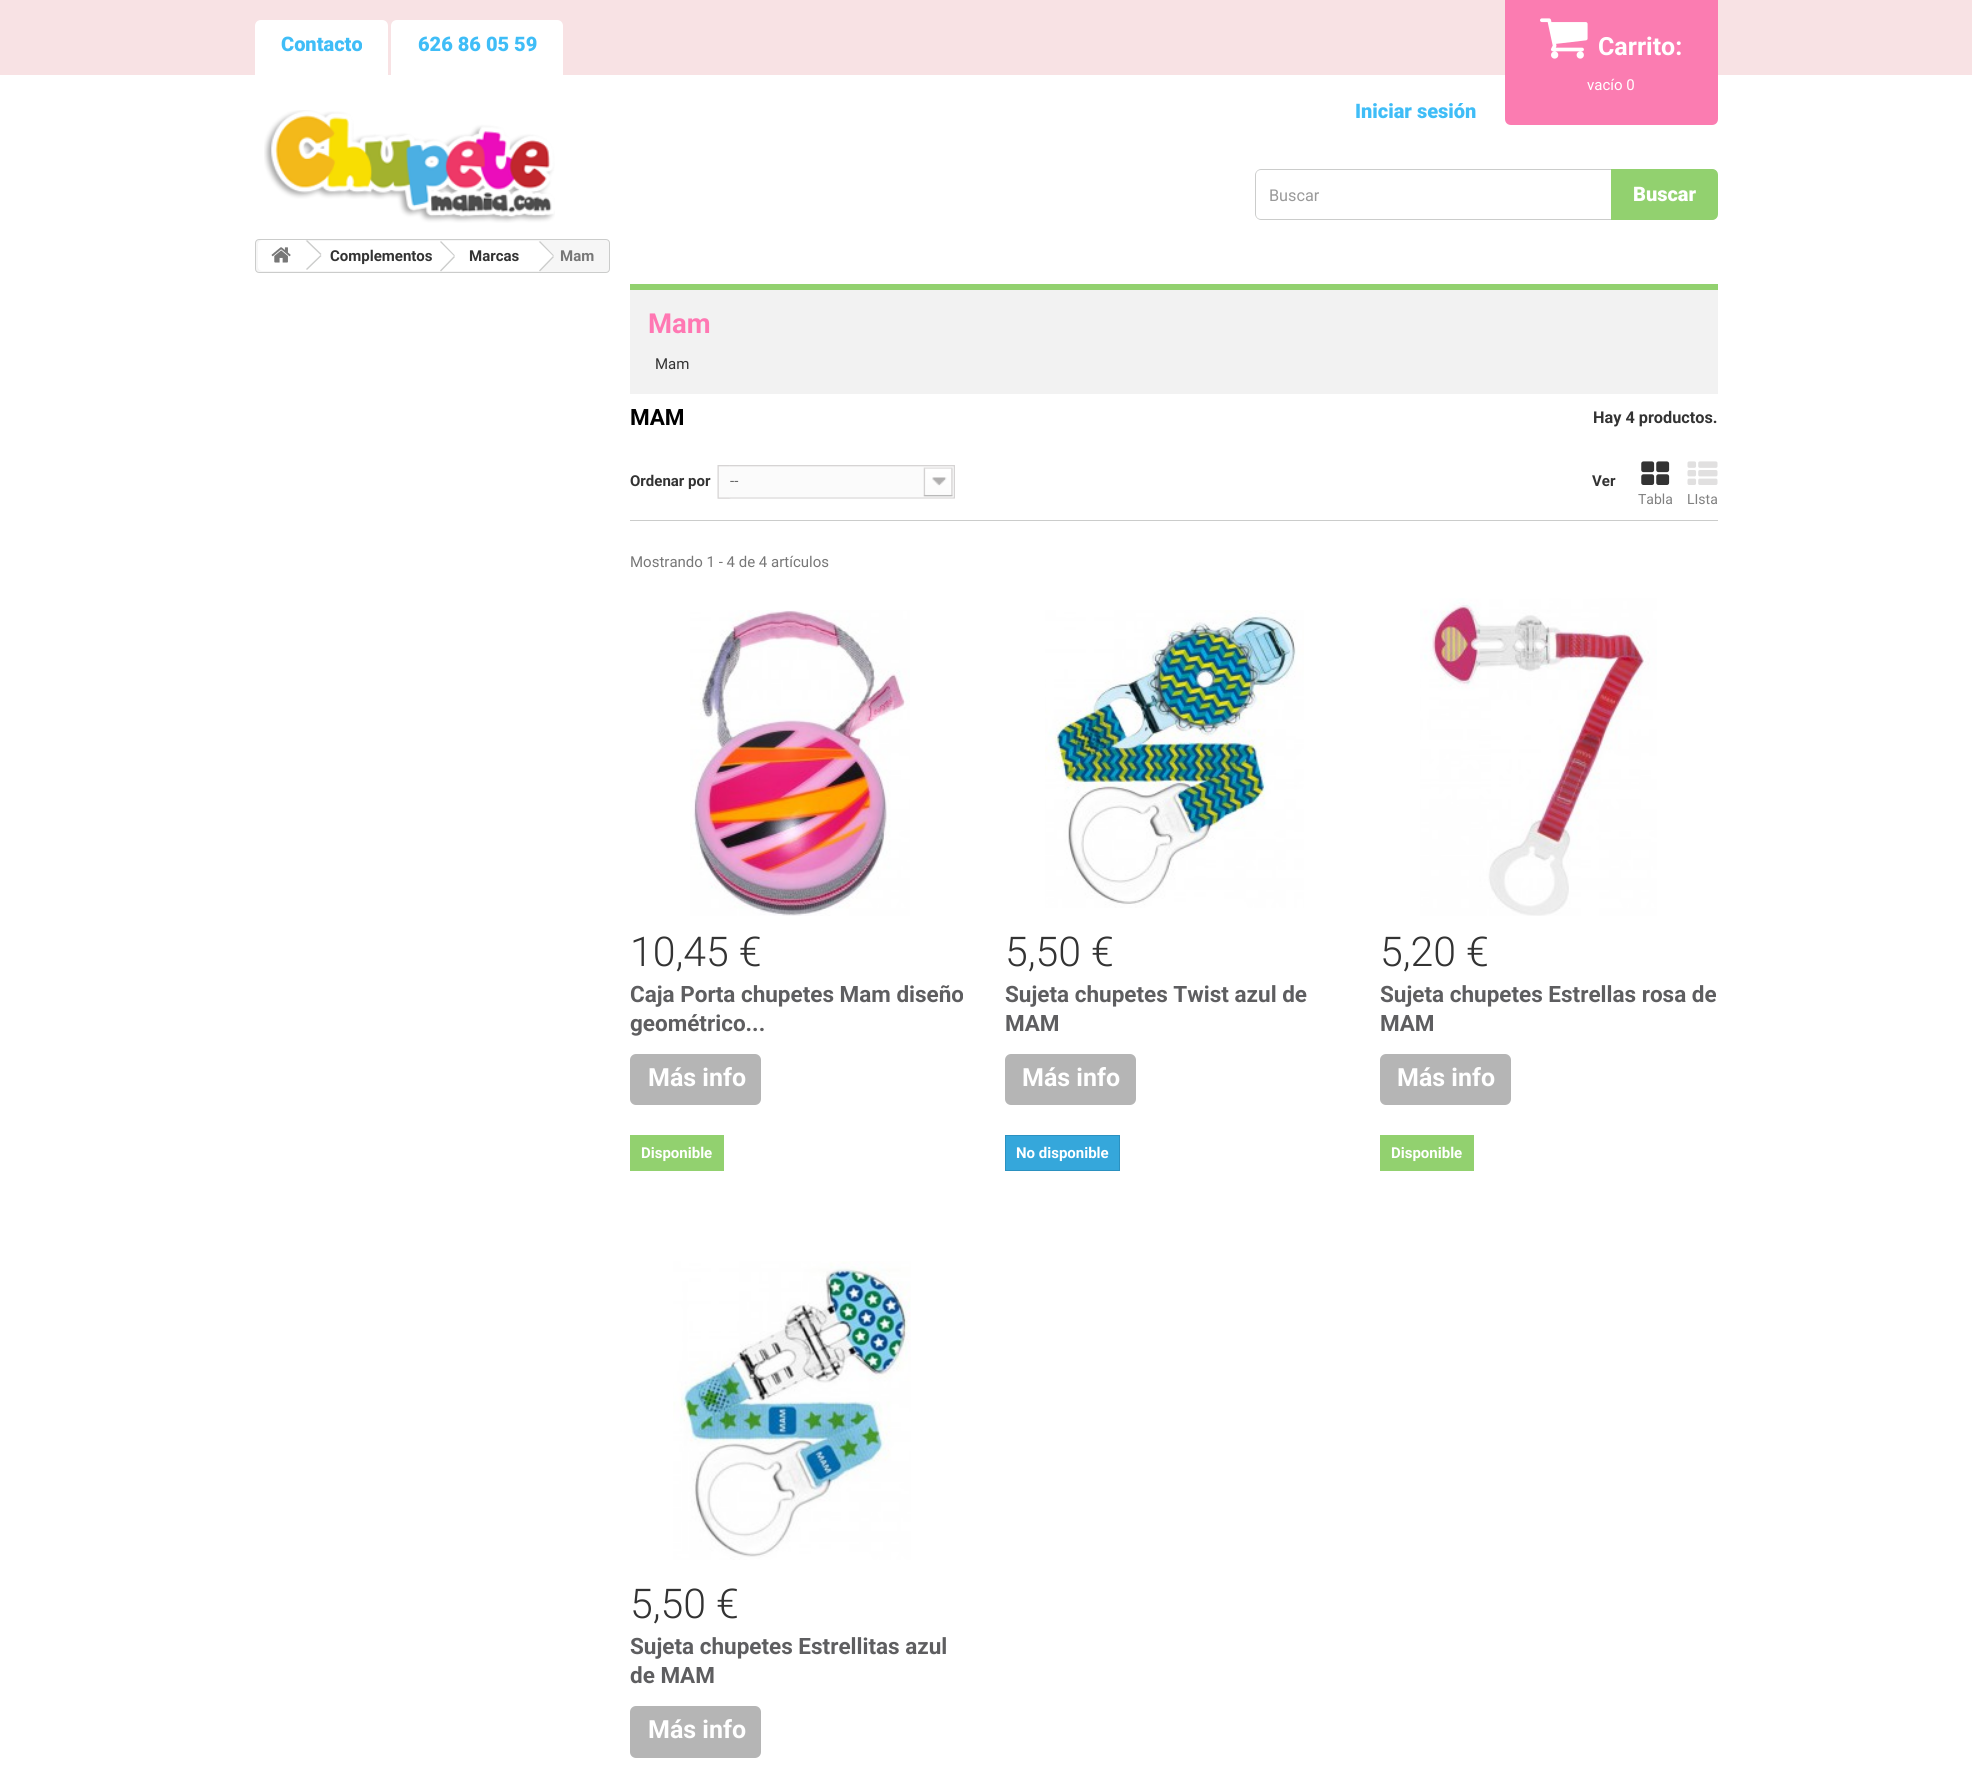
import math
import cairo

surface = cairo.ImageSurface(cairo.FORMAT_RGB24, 1972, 1782)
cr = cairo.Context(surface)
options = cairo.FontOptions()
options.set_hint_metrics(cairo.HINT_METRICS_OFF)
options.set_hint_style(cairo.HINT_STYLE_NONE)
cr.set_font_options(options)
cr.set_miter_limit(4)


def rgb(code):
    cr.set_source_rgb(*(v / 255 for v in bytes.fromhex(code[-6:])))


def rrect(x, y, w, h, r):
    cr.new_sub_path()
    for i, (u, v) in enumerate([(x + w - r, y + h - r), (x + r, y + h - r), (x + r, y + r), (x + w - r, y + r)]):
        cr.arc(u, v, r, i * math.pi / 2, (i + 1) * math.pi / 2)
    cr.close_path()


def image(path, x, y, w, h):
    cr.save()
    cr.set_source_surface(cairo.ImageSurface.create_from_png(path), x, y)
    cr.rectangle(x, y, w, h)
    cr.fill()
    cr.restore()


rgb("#ffffff")
cr.paint()
rgb("#f8e2e4")
cr.rectangle(0, 0, 1972, 75)
cr.fill()
rgb("#ffffff")
cr.new_path()
cr.move_to(261, 20)
cr.line_to(382, 20)
cr.curve_to(385.5, 20, 388, 22.5, 388, 26)
cr.line_to(388, 75)
cr.line_to(255, 75)
cr.line_to(255, 26)
cr.curve_to(255, 22.5, 257.5, 20, 261, 20)
cr.close_path()
cr.fill()
cr.new_path()
cr.move_to(397, 20)
cr.line_to(557, 20)
cr.curve_to(560.5, 20, 563, 22.5, 563, 26)
cr.line_to(563, 75)
cr.line_to(391, 75)
cr.line_to(391, 26)
cr.curve_to(391, 22.5, 393.5, 20, 397, 20)
cr.close_path()
cr.fill()
rgb("#fb7cb1")
cr.new_path()
cr.move_to(1505, 0)
cr.line_to(1718, 0)
cr.line_to(1718, 119)
cr.curve_to(1718, 122.5, 1715.5, 125, 1712, 125)
cr.line_to(1511, 125)
cr.curve_to(1507.5, 125, 1505, 122.5, 1505, 119)
cr.close_path()
cr.fill()
image("img/1.png", 1540, 18, 48, 41)
image("img/2.png", 264, 110, 291, 113)
rgb("#cbcccb")
cr.set_fill_rule(cairo.FILL_RULE_EVEN_ODD)
cr.new_path()
cr.move_to(1261, 169)
cr.line_to(1711, 169)
cr.curve_to(1715, 169, 1718, 172, 1718, 175)
cr.line_to(1718, 214)
cr.curve_to(1718, 217, 1715, 220, 1711, 220)
cr.line_to(1261, 220)
cr.curve_to(1258, 220, 1255, 217, 1255, 214)
cr.line_to(1255, 175)
cr.curve_to(1255, 172, 1258, 169, 1261, 169)
cr.close_path()
cr.move_to(1261, 170)
cr.line_to(1711, 170)
cr.curve_to(1715, 170, 1718, 172, 1718, 175)
cr.line_to(1718, 214)
cr.curve_to(1718, 217, 1715, 219, 1711, 219)
cr.line_to(1261, 219)
cr.curve_to(1258, 219, 1256, 217, 1256, 214)
cr.line_to(1256, 175)
cr.curve_to(1256, 172, 1258, 170, 1261, 170)
cr.close_path()
cr.fill()
rgb("#92d16f")
cr.new_path()
cr.move_to(1611, 169)
cr.line_to(1712, 169)
cr.curve_to(1715.5, 169, 1718, 171.5, 1718, 175)
cr.line_to(1718, 214)
cr.curve_to(1718, 217.5, 1715.5, 220, 1712, 220)
cr.line_to(1611, 220)
cr.close_path()
cr.fill()
rgb("#f6f6f6")
rrect(255.5, 239.5, 354, 33, 3.5)
cr.fill_preserve()
rgb("#cbcccb")
cr.set_line_width(1)
cr.stroke()
rgb("#ffffff")
cr.new_path()
cr.move_to(262, 240)
cr.line_to(305, 240)
cr.line_to(305, 271)
cr.line_to(262, 271)
cr.curve_to(260, 271, 258, 269, 258, 267)
cr.line_to(258, 244)
cr.curve_to(258, 242, 260, 240, 262, 240)
cr.close_path()
cr.fill()
image("img/3.png", 271, 247, 20, 16)
cr.rectangle(305, 241, 136, 30)
cr.fill()
cr.set_fill_rule(cairo.FILL_RULE_WINDING)
cr.new_path()
cr.move_to(308, 241)
cr.line_to(320.5, 253)
cr.curve_to(321.5, 254, 321.5, 256, 320.5, 257)
cr.line_to(308, 269)
cr.curve_to(307, 270, 305.5, 270, 304.5, 269)
cr.line_to(292, 257)
cr.curve_to(291, 256, 291, 254, 292, 253)
cr.line_to(304.5, 241)
cr.curve_to(305.5, 240, 307, 240, 308, 241)
cr.close_path()
cr.fill()
rgb("#cbcccb")
cr.new_path()
cr.move_to(307, 240)
cr.line_to(321.5, 254)
cr.line_to(320.5, 255)
cr.line_to(306, 241)
cr.close_path()
cr.move_to(320.5, 255)
cr.line_to(321.5, 256)
cr.line_to(307, 270)
cr.line_to(306, 269)
cr.close_path()
cr.fill()
rgb("#ffffff")
cr.new_path()
cr.move_to(454.5, 242)
cr.line_to(466.5, 254.5)
cr.curve_to(467.5, 255.5, 467.5, 257, 466.5, 258)
cr.line_to(454, 271)
cr.line_to(451, 271)
cr.line_to(450.5, 270.5)
cr.line_to(438.5, 258)
cr.curve_to(437.5, 257, 437.5, 255.5, 438.5, 254.5)
cr.line_to(450.5, 242)
cr.curve_to(451.5, 241, 453.5, 241, 454.5, 242)
cr.close_path()
cr.fill()
cr.rectangle(441, 241, 97, 30)
cr.fill()
rgb("#cbcccb")
cr.new_path()
cr.move_to(441, 241)
cr.line_to(455, 255.5)
cr.line_to(454, 256)
cr.line_to(440, 242)
cr.close_path()
cr.move_to(454, 256)
cr.line_to(455, 257)
cr.line_to(441, 271.5)
cr.line_to(440, 270.5)
cr.close_path()
cr.fill()
rgb("#ffffff")
cr.new_path()
cr.move_to(540.5, 242)
cr.line_to(553, 254.5)
cr.curve_to(554, 255.5, 554, 257, 553, 258)
cr.line_to(540, 271)
cr.line_to(537.5, 271)
cr.line_to(537, 270.5)
cr.line_to(525, 258)
cr.curve_to(524, 257, 524, 255.5, 525, 254.5)
cr.line_to(537, 242)
cr.curve_to(538, 241, 540, 241, 540.5, 242)
cr.close_path()
cr.fill()
rgb("#cbcccb")
cr.new_path()
cr.move_to(540, 241)
cr.line_to(554, 255.5)
cr.line_to(553, 256)
cr.line_to(539, 242)
cr.close_path()
cr.move_to(553, 256)
cr.line_to(554, 257)
cr.line_to(540, 271.5)
cr.line_to(539, 270.5)
cr.close_path()
cr.fill()
for x, y, w, h, color in [
    (630, 284, 1088, 6, "#92d16f"),
    (630, 290, 1088, 104, "#f2f2f2"),
    (630, 520, 1088, 1, "#cbcccb"),
]:
    rgb(color)
    cr.rectangle(x, y, w, h)
    cr.fill()
image("img/4.png", 717, 465, 14, 34)
image("img/5.png", 730, 465, 225, 34)
image("img/6.png", 1641, 461, 29, 24)
image("img/7.png", 1687, 461, 31, 24)
image("img/8.png", 690, 610, 220, 306)
rgb("#b5b5b5")
rrect(630, 1054, 131, 51, 6)
cr.fill()
rgb("#92d16f")
cr.rectangle(630, 1135, 94, 36)
cr.fill()
image("img/9.png", 1045, 610, 259, 298)
rgb("#b5b5b5")
rrect(1005, 1054, 131, 51, 6)
cr.fill()
rgb("#35a7db")
cr.rectangle(1005.5, 1135.5, 114, 35)
cr.fill_preserve()
rgb("#2b91c0")
cr.stroke()
image("img/10.png", 1420, 598, 237, 318)
rgb("#b5b5b5")
rrect(1380, 1054, 131, 51, 6)
cr.fill()
rgb("#92d16f")
cr.rectangle(1380, 1135, 94, 36)
cr.fill()
image("img/11.png", 673, 1261, 238, 299)
rgb("#b5b5b5")
rrect(630, 1706, 131, 52, 6)
cr.fill()
cr.select_font_face("Roboto Black")
cr.set_font_size(20)
rgb("#3fbdf7")
cr.move_to(281, 51)
cr.show_text("Contacto")
cr.move_to(418, 51)
cr.show_text("626 86 05 59")
cr.select_font_face("Roboto", cairo.FONT_SLANT_NORMAL, cairo.FONT_WEIGHT_BOLD)
cr.set_font_size(25)
rgb("#ffffff")
cr.move_to(1598, 55)
cr.show_text("Carrito:")
cr.select_font_face("Roboto")
cr.set_font_size(15)
cr.move_to(1587, 90)
cr.show_text("vacío 0")
cr.select_font_face("Roboto Black")
cr.set_font_size(20)
rgb("#3fbdf7")
cr.move_to(1355, 118)
cr.show_text("Iniciar sesión")
cr.select_font_face("Roboto")
cr.set_font_size(16.25)
rgb("#999999")
cr.move_to(1269, 201)
cr.show_text("Buscar")
cr.select_font_face("Roboto Black")
cr.set_font_size(20)
rgb("#ffffff")
cr.move_to(1633, 201)
cr.show_text("Buscar")
cr.select_font_face("Roboto", cairo.FONT_SLANT_NORMAL, cairo.FONT_WEIGHT_BOLD)
cr.set_font_size(15)
rgb("#333333")
cr.move_to(330, 261)
cr.show_text("Complementos")
cr.move_to(469, 261)
cr.show_text("Marcas")
rgb("#777777")
cr.move_to(560, 261)
cr.show_text("Mam")
cr.set_font_size(27.5)
rgb("#ff78b3")
cr.move_to(648, 333)
cr.show_text("Mam")
cr.select_font_face("Roboto")
cr.set_font_size(15)
rgb("#333333")
cr.move_to(655, 369)
cr.show_text("Mam")
cr.select_font_face("Roboto", cairo.FONT_SLANT_NORMAL, cairo.FONT_WEIGHT_BOLD)
cr.set_font_size(22.5)
rgb("#000000")
cr.move_to(630, 425)
cr.show_text("MAM")
cr.set_font_size(16.25)
rgb("#333333")
cr.move_to(1593, 423)
cr.show_text("Hay 4 productos.")
cr.set_font_size(15)
cr.move_to(630, 486)
cr.show_text("Ordenar por")
cr.select_font_face("Roboto")
rgb("#666666")
cr.move_to(730, 486)
cr.show_text("--")
cr.select_font_face("Roboto", cairo.FONT_SLANT_NORMAL, cairo.FONT_WEIGHT_BOLD)
rgb("#333333")
cr.move_to(1592, 486)
cr.show_text("Ver")
cr.select_font_face("Roboto")
cr.set_font_size(14)
rgb("#808080")
cr.move_to(1638, 504)
cr.show_text("Tabla")
cr.move_to(1687, 504)
cr.show_text("LIsta")
cr.set_font_size(15)
rgb("#777777")
cr.move_to(630, 567)
cr.show_text("Mostrando 1 - 4 de 4 artículos")
cr.select_font_face("Roboto Light")
cr.set_font_size(41)
rgb("#333333")
cr.move_to(630, 966)
cr.show_text("10,45 €")
cr.select_font_face("Roboto", cairo.FONT_SLANT_NORMAL, cairo.FONT_WEIGHT_BOLD)
cr.set_font_size(22.5)
rgb("#5e5e60")
cr.move_to(630, 1002)
cr.show_text("Caja Porta chupetes Mam diseño")
cr.move_to(630, 1031)
cr.show_text("geométrico...")
cr.set_font_size(25)
rgb("#ffffff")
cr.move_to(648, 1086)
cr.show_text("Más info")
cr.set_font_size(15)
cr.move_to(641, 1158)
cr.show_text("Disponible")
cr.select_font_face("Roboto Light")
cr.set_font_size(41)
rgb("#333333")
cr.move_to(1005, 966)
cr.show_text("5,50 €")
cr.select_font_face("Roboto", cairo.FONT_SLANT_NORMAL, cairo.FONT_WEIGHT_BOLD)
cr.set_font_size(22.5)
rgb("#5e5e60")
cr.move_to(1005, 1002)
cr.show_text("Sujeta chupetes Twist azul de")
cr.move_to(1005, 1031)
cr.show_text("MAM")
cr.set_font_size(25)
rgb("#ffffff")
cr.move_to(1022, 1086)
cr.show_text("Más info")
cr.set_font_size(15)
cr.move_to(1016, 1158)
cr.show_text("No disponible")
cr.select_font_face("Roboto Light")
cr.set_font_size(41)
rgb("#333333")
cr.move_to(1380, 966)
cr.show_text("5,20 €")
cr.select_font_face("Roboto", cairo.FONT_SLANT_NORMAL, cairo.FONT_WEIGHT_BOLD)
cr.set_font_size(22.5)
rgb("#5e5e60")
cr.move_to(1380, 1002)
cr.show_text("Sujeta chupetes Estrellas rosa de")
cr.move_to(1380, 1031)
cr.show_text("MAM")
cr.set_font_size(25)
rgb("#ffffff")
cr.move_to(1397, 1086)
cr.show_text("Más info")
cr.set_font_size(15)
cr.move_to(1391, 1158)
cr.show_text("Disponible")
cr.select_font_face("Roboto Light")
cr.set_font_size(41)
rgb("#333333")
cr.move_to(630, 1618)
cr.show_text("5,50 €")
cr.select_font_face("Roboto", cairo.FONT_SLANT_NORMAL, cairo.FONT_WEIGHT_BOLD)
cr.set_font_size(22.5)
rgb("#5e5e60")
cr.move_to(630, 1654)
cr.show_text("Sujeta chupetes Estrellitas azul")
cr.move_to(630, 1683)
cr.show_text("de MAM")
cr.set_font_size(25)
rgb("#ffffff")
cr.move_to(648, 1738)
cr.show_text("Más info")
surface.write_to_png("page.png")
